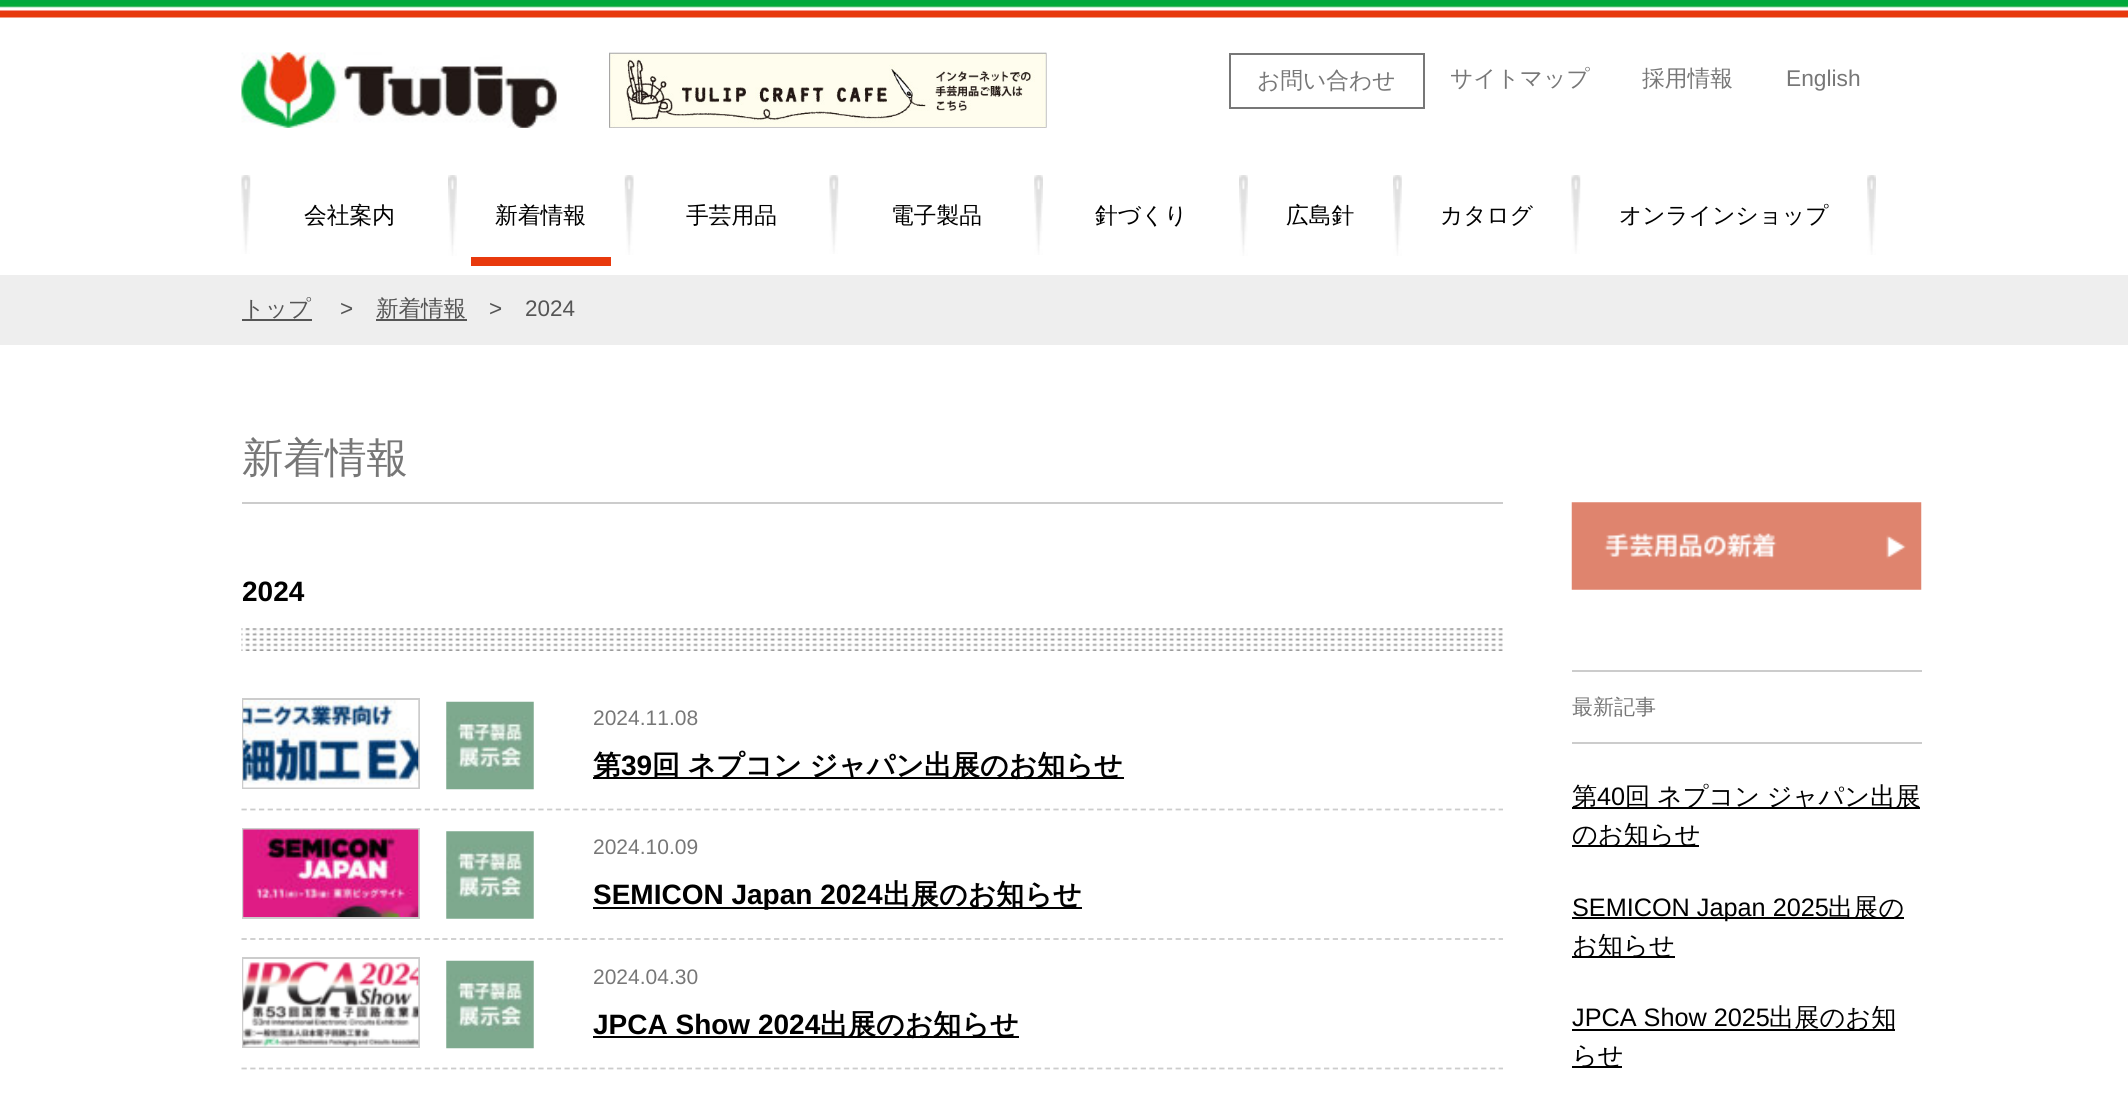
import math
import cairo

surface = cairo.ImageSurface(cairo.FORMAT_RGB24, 2128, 1115)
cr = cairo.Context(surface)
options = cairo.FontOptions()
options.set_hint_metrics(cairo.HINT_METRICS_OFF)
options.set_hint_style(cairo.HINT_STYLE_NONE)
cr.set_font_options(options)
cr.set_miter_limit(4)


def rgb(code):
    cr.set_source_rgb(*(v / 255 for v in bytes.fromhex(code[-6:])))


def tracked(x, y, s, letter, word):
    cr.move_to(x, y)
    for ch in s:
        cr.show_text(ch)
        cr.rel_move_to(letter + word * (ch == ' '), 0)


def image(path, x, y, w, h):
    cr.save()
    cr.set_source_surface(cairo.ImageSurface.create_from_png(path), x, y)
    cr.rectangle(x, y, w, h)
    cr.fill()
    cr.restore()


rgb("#ffffff")
cr.paint()
image("img/1.png", 0, 0, 2128, 18)
image("img/2.png", 241, 52, 316, 76)
image("img/3.png", 609, 52, 438, 76)
cr.rectangle(1230, 54, 194, 54)
rgb("#777777")
cr.stroke()
image("img/4.png", 241, 175, 10, 79)
image("img/5.png", 448, 175, 9, 81)
image("img/6.png", 624, 175, 10, 80)
rgb("#e8390d")
cr.rectangle(471, 257, 140, 9)
cr.fill()
image("img/4.png", 829, 175, 10, 79)
image("img/7.png", 1034, 175, 9, 80)
image("img/8.png", 1239, 175, 9, 81)
image("img/5.png", 1393, 175, 9, 81)
image("img/9.png", 1571, 175, 10, 79)
image("img/10.png", 1867, 175, 9, 80)
for x, y, w, h, color in [
    (0, 275, 2128, 70, "#eeeeee"),
    (242, 319, 70, 2, "#555555"),
    (376, 319, 91, 2, "#555555"),
    (242, 502, 1261, 2, "#cccccc"),
]:
    rgb(color)
    cr.rectangle(x, y, w, h)
    cr.fill()
image("img/11.png", 241, 628, 1262, 23)
cr.new_path()
cr.move_to(241.5, 809.5)
cr.line_to(1503, 809.5)
cr.set_line_width(1.8)
cr.set_dash([5.25, 3.48])
cr.stroke()
cr.rectangle(243, 699, 176, 89)
cr.set_line_width(2)
cr.set_dash([])
cr.stroke()
image("img/12.png", 243, 700, 176, 88)
image("img/13.png", 446, 701, 88, 89)
rgb("#000000")
cr.rectangle(593, 777, 531, 2)
cr.fill()
cr.new_path()
cr.move_to(241.5, 939)
cr.line_to(1503, 939)
rgb("#cccccc")
cr.set_line_width(1.8)
cr.set_dash([5.25, 3.48])
cr.stroke()
cr.rectangle(243, 829, 176, 89)
cr.set_line_width(2)
cr.set_dash([])
cr.stroke()
image("img/14.png", 243, 829, 176, 88)
image("img/15.png", 446, 831, 88, 88)
rgb("#000000")
cr.rectangle(593, 907, 489, 2)
cr.fill()
cr.new_path()
cr.move_to(241.5, 1068.5)
cr.line_to(1503, 1068.5)
rgb("#cccccc")
cr.set_line_width(1.8)
cr.set_dash([5.25, 3.48])
cr.stroke()
cr.rectangle(243, 958, 176, 89)
cr.set_line_width(2)
cr.set_dash([])
cr.stroke()
image("img/16.png", 243, 959, 176, 88)
image("img/13.png", 446, 960, 88, 89)
rgb("#000000")
cr.rectangle(593, 1036, 426, 2)
cr.fill()
image("img/17.png", 1571, 502, 351, 88)
for x, y, w, h, color in [
    (1572, 670, 350, 2, "#cccccc"),
    (1572, 742, 350, 2, "#cccccc"),
    (1572, 807, 348, 2, "#000000"),
    (1572, 845, 127, 2, "#000000"),
    (1572, 917, 332, 2, "#000000"),
    (1572, 956, 103, 2, "#000000"),
    (1572, 1029, 323, 2, "#000000"),
    (1572, 1066, 50, 2, "#000000"),
]:
    rgb(color)
    cr.rectangle(x, y, w, h)
    cr.fill()
cr.select_font_face("WenQuanYi Zen Hei Medium")
cr.set_font_size(22.75)
rgb("#777777")
for x, y, s in [
    (1257, 88, "お問い合わせ"),
    (1450, 86, "サイトマップ"),
    (1642, 86, "採用情報"),
]:
    cr.move_to(x, y)
    cr.show_text(s)
cr.select_font_face("Liberation Sans")
cr.move_to(1786, 86)
cr.show_text("English")
cr.select_font_face("WenQuanYi Zen Hei Medium")
rgb("#000000")
for x, y, s in [
    (304, 223, "会社案内"),
    (495, 223, "新着情報"),
    (686, 223, "手芸用品"),
    (891, 223, "電子製品"),
    (1095, 223, "針づくり"),
    (1286, 223, "広島針"),
    (1440, 223, "カタログ"),
    (1619, 223, "オンラインショップ"),
]:
    cr.move_to(x, y)
    cr.show_text(s)
cr.set_font_size(22.5)
rgb("#555555")
cr.move_to(242, 316)
cr.show_text("トップ")
cr.select_font_face("Liberation Sans")
cr.move_to(340, 316)
cr.show_text(">")
cr.select_font_face("WenQuanYi Zen Hei Medium")
cr.move_to(376, 316)
cr.show_text("新着情報")
cr.select_font_face("Liberation Sans")
cr.move_to(489, 316)
cr.show_text(">")
cr.move_to(525, 316)
cr.show_text("2024")
cr.select_font_face("WenQuanYi Zen Hei Medium")
cr.set_font_size(41.5)
rgb("#777777")
cr.move_to(242, 472)
cr.show_text("新着情報")
cr.select_font_face("Liberation Sans", cairo.FONT_SLANT_NORMAL, cairo.FONT_WEIGHT_BOLD)
cr.set_font_size(28)
rgb("#000000")
cr.move_to(242, 601)
cr.show_text("2024")
cr.select_font_face("Liberation Sans")
cr.set_font_size(21)
rgb("#777777")
cr.move_to(593, 725)
cr.show_text("2024.11.08")
cr.select_font_face("WenQuanYi Zen Hei", cairo.FONT_SLANT_NORMAL, cairo.FONT_WEIGHT_BOLD)
cr.set_font_size(28)
rgb("#000000")
cr.move_to(593, 775)
cr.show_text("第")
cr.select_font_face("Liberation Sans", cairo.FONT_SLANT_NORMAL, cairo.FONT_WEIGHT_BOLD)
cr.move_to(621, 775)
cr.show_text("39")
cr.select_font_face("WenQuanYi Zen Hei", cairo.FONT_SLANT_NORMAL, cairo.FONT_WEIGHT_BOLD)
tracked(652, 775, "回 ネプコン ジャパン出展のお知らせ", 0, -1)
cr.select_font_face("Liberation Sans")
cr.set_font_size(21)
rgb("#777777")
cr.move_to(593, 854)
cr.show_text("2024.10.09")
cr.select_font_face("Liberation Sans", cairo.FONT_SLANT_NORMAL, cairo.FONT_WEIGHT_BOLD)
cr.set_font_size(28)
rgb("#000000")
cr.move_to(593, 904)
cr.show_text("SEMICON Japan 2024")
cr.select_font_face("WenQuanYi Zen Hei", cairo.FONT_SLANT_NORMAL, cairo.FONT_WEIGHT_BOLD)
cr.move_to(883, 904)
cr.show_text("出展のお知らせ")
cr.select_font_face("Liberation Sans")
cr.set_font_size(21)
rgb("#777777")
cr.move_to(593, 984)
cr.show_text("2024.04.30")
cr.select_font_face("Liberation Sans", cairo.FONT_SLANT_NORMAL, cairo.FONT_WEIGHT_BOLD)
cr.set_font_size(28)
rgb("#000000")
cr.move_to(593, 1034)
cr.show_text("JPCA Show 2024")
cr.select_font_face("WenQuanYi Zen Hei", cairo.FONT_SLANT_NORMAL, cairo.FONT_WEIGHT_BOLD)
cr.move_to(820, 1034)
cr.show_text("出展のお知らせ")
cr.select_font_face("WenQuanYi Zen Hei Medium")
cr.set_font_size(21)
rgb("#777777")
cr.move_to(1572, 714)
cr.show_text("最新記事")
cr.set_font_size(25.25)
rgb("#000000")
cr.move_to(1572, 805)
cr.show_text("第")
cr.select_font_face("Liberation Sans")
cr.move_to(1597, 805)
cr.show_text("40")
cr.select_font_face("WenQuanYi Zen Hei Medium")
tracked(1625, 805, "回 ネプコン ジャパン出展", 0, -1)
cr.move_to(1572, 843)
cr.show_text("のお知らせ")
cr.select_font_face("Liberation Sans")
cr.move_to(1572, 916)
cr.show_text("SEMICON Japan 2025")
cr.select_font_face("WenQuanYi Zen Hei Medium")
cr.move_to(1828, 916)
cr.show_text("出展の")
cr.move_to(1572, 954)
cr.show_text("お知らせ")
cr.select_font_face("Liberation Sans")
cr.move_to(1572, 1026)
cr.show_text("JPCA Show 2025")
cr.select_font_face("WenQuanYi Zen Hei Medium")
cr.move_to(1769, 1026)
cr.show_text("出展のお知")
cr.move_to(1572, 1064)
cr.show_text("らせ")
surface.write_to_png("page.png")
